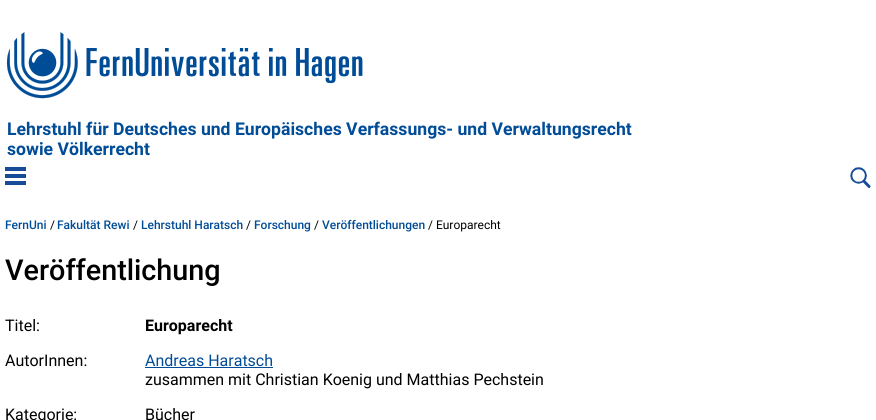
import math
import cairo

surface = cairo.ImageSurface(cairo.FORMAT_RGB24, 876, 420)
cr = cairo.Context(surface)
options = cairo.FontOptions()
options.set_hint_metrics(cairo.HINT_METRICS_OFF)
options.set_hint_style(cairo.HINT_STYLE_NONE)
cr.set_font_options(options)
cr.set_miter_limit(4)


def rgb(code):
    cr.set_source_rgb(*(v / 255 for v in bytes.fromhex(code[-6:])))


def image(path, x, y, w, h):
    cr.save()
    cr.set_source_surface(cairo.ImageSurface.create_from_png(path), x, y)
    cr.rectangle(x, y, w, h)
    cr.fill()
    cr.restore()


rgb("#ffffff")
cr.paint()
image("img/1.png", 6, 32, 357, 67)
for x, y, w, h, color in [
    (5, 167, 21, 4, "#164c97"),
    (5, 174, 21, 4, "#164c97"),
    (5, 181, 21, 4, "#164c97"),
]:
    rgb(color)
    cr.rectangle(x, y, w, h)
    cr.fill()
image("img/2.png", 850, 167, 21, 21)
rgb("#004c97")
cr.rectangle(145, 367, 128, 1)
cr.fill()
cr.select_font_face("Roboto", cairo.FONT_SLANT_NORMAL, cairo.FONT_WEIGHT_BOLD)
cr.set_font_size(17.6)
cr.move_to(7, 135)
cr.show_text("Lehrstuhl für Deutsches und Europäisches Verfassungs- und Verwaltungsrecht")
cr.move_to(7, 155)
cr.show_text("sowie Völkerrecht")
cr.select_font_face("Roboto Medium")
cr.set_font_size(12)
cr.move_to(5, 229)
cr.show_text("FernUni")
cr.select_font_face("Roboto")
rgb("#000000")
cr.move_to(50, 229)
cr.show_text("/")
cr.select_font_face("Roboto Medium")
rgb("#004c97")
cr.move_to(57, 229)
cr.show_text("Fakultät Rewi")
cr.select_font_face("Roboto")
rgb("#000000")
cr.move_to(133, 229)
cr.show_text("/")
cr.select_font_face("Roboto Medium")
rgb("#004c97")
cr.move_to(141, 229)
cr.show_text("Lehrstuhl Haratsch")
cr.select_font_face("Roboto")
rgb("#000000")
cr.move_to(246, 229)
cr.show_text("/")
cr.select_font_face("Roboto Medium")
rgb("#004c97")
cr.move_to(254, 229)
cr.show_text("Forschung")
cr.select_font_face("Roboto")
rgb("#000000")
cr.move_to(314, 229)
cr.show_text("/")
cr.select_font_face("Roboto Medium")
rgb("#004c97")
cr.move_to(322, 229)
cr.show_text("Veröffentlichungen")
cr.select_font_face("Roboto")
rgb("#000000")
cr.move_to(428, 229)
cr.show_text("/ Europarecht")
cr.select_font_face("Roboto Medium")
cr.set_font_size(28.75)
cr.move_to(5, 280)
cr.show_text("Veröffentlichung")
cr.select_font_face("Roboto")
cr.set_font_size(16)
cr.move_to(5, 331)
cr.show_text("Titel:")
cr.select_font_face("Roboto", cairo.FONT_SLANT_NORMAL, cairo.FONT_WEIGHT_BOLD)
cr.move_to(145, 331)
cr.show_text("Europarecht")
cr.select_font_face("Roboto")
cr.move_to(5, 366)
cr.show_text("AutorInnen:")
rgb("#004c97")
cr.move_to(145, 366)
cr.show_text("Andreas Haratsch")
rgb("#000000")
for x, y, s in [
    (145, 385, "zusammen mit Christian Koenig und Matthias Pechstein"),
    (5, 420, "Kategorie:"),
    (145, 420, "Bücher"),
]:
    cr.move_to(x, y)
    cr.show_text(s)
surface.write_to_png("page.png")
